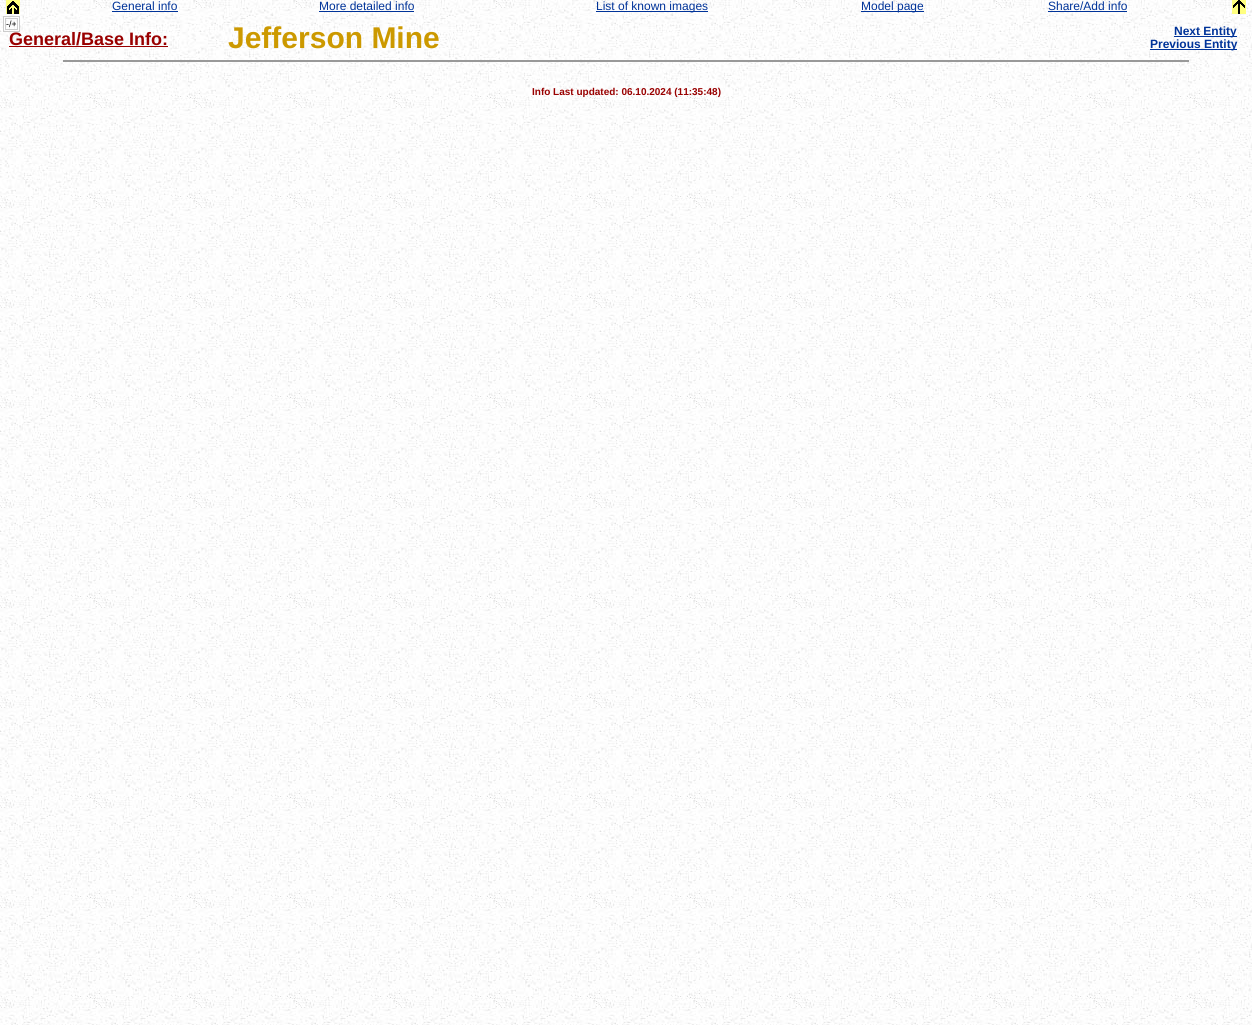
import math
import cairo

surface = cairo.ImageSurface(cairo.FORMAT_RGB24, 1252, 1025)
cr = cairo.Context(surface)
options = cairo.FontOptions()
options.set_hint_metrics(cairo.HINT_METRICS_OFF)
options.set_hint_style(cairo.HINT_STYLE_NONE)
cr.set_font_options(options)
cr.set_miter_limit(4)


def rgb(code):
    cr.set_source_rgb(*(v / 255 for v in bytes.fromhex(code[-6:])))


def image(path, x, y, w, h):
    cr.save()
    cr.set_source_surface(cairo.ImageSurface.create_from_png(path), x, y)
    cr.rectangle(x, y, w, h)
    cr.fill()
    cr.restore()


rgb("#ffffff")
cr.paint()
image("img/1.png", 0, 57, 1252, 968)
image("img/2.png", 0, 0, 1252, 57)
image("img/3.png", 6, 0, 14, 14)
for x, y, w, h, color in [
    (112, 11, 66, 1, "#003399"),
    (319, 11, 95, 1, "#003399"),
    (596, 11, 112, 1, "#003399"),
    (861, 11, 63, 1, "#003399"),
    (1048, 11, 79, 1, "#003399"),
]:
    rgb(color)
    cr.rectangle(x, y, w, h)
    cr.fill()
image("img/4.png", 1232, 0, 14, 14)
for x, y, w, h, color in [
    (9, 46, 159, 1, "#990000"),
    (1174, 36, 63, 1, "#003399"),
    (1150, 49, 87, 1, "#003399"),
    (63, 60, 1126, 2, "#999999"),
]:
    rgb(color)
    cr.rectangle(x, y, w, h)
    cr.fill()
cr.select_font_face("Liberation Sans")
cr.set_font_size(12)
rgb("#003399")
for x, y, s in [
    (112, 10, "General info"),
    (319, 10, "More detailed info"),
    (596, 10, "List of known images"),
    (861, 10, "Model page"),
    (1048, 10, "Share/Add info"),
]:
    cr.move_to(x, y)
    cr.show_text(s)
cr.select_font_face("Liberation Sans", cairo.FONT_SLANT_NORMAL, cairo.FONT_WEIGHT_BOLD)
cr.set_font_size(18)
rgb("#990000")
cr.move_to(9, 45)
cr.show_text("General/Base Info:")
cr.rectangle(3.5, 16.5, 16, 15)
rgb("#cccccc")
cr.set_line_width(1)
cr.stroke()
cr.rectangle(5.5, 18.5, 12, 11)
cr.stroke()
cr.select_font_face("Liberation Sans")
cr.set_font_size(9)
rgb("#000000")
cr.move_to(6, 27)
cr.show_text("-/+")
cr.select_font_face("Liberation Sans", cairo.FONT_SLANT_NORMAL, cairo.FONT_WEIGHT_BOLD)
cr.set_font_size(30)
rgb("#cc9900")
cr.move_to(228, 48)
cr.show_text("Jefferson Mine")
cr.set_font_size(12)
rgb("#003399")
cr.move_to(1174, 35)
cr.show_text("Next Entity")
cr.move_to(1150, 48)
cr.show_text("Previous Entity")
cr.set_font_size(10)
rgb("#990000")
cr.move_to(532, 95)
cr.show_text("Info Last updated: 06.10.2024 (11:35:48)")
surface.write_to_png("page.png")
